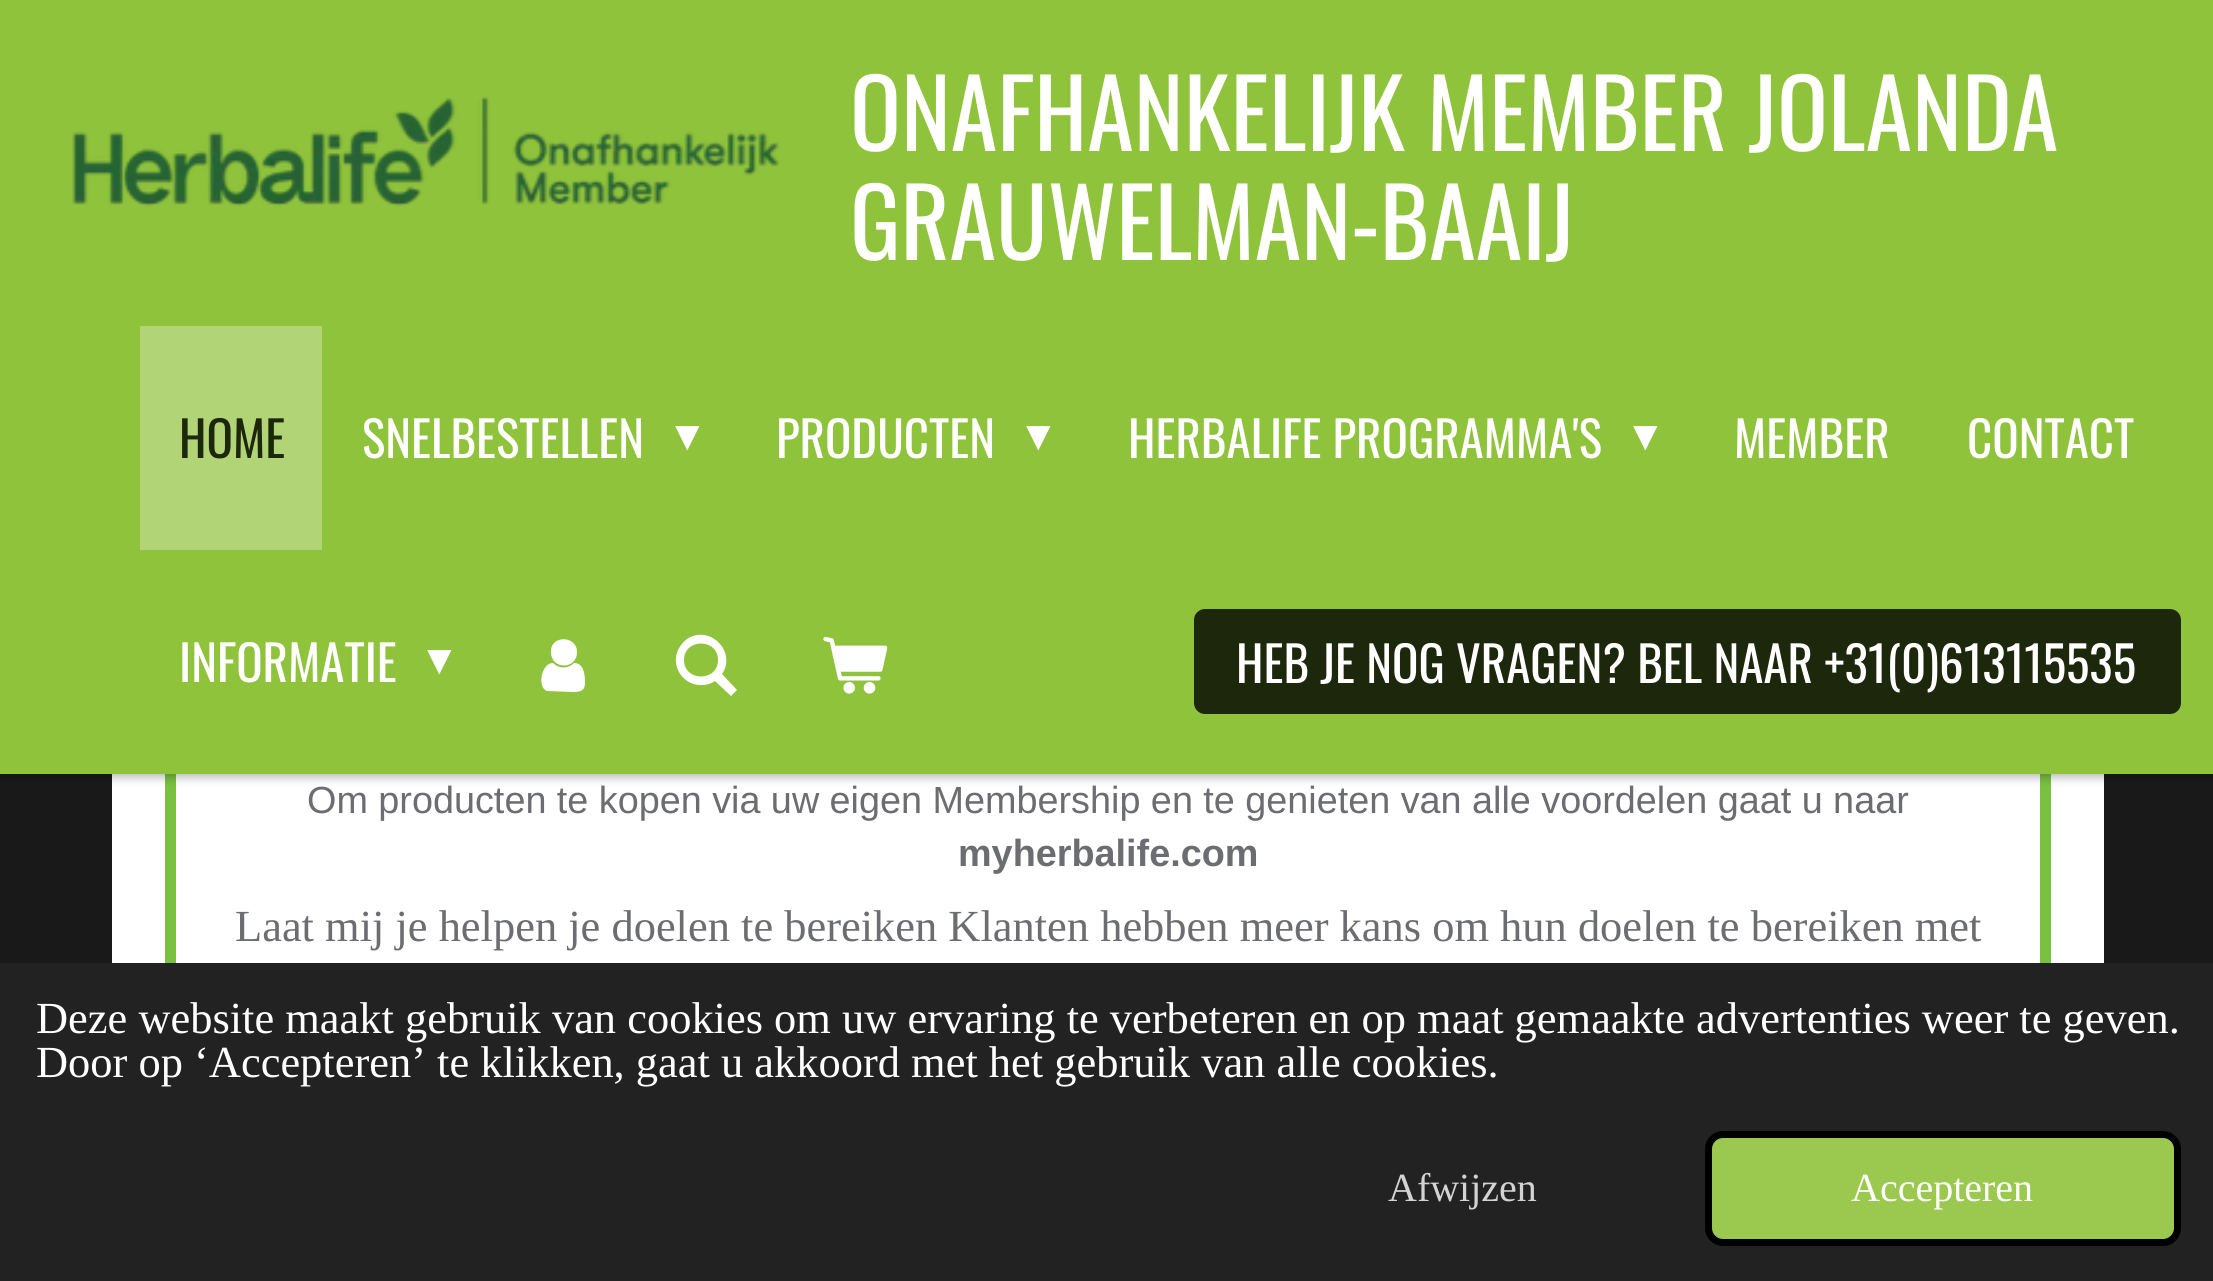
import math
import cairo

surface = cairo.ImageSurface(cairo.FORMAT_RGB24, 2213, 1281)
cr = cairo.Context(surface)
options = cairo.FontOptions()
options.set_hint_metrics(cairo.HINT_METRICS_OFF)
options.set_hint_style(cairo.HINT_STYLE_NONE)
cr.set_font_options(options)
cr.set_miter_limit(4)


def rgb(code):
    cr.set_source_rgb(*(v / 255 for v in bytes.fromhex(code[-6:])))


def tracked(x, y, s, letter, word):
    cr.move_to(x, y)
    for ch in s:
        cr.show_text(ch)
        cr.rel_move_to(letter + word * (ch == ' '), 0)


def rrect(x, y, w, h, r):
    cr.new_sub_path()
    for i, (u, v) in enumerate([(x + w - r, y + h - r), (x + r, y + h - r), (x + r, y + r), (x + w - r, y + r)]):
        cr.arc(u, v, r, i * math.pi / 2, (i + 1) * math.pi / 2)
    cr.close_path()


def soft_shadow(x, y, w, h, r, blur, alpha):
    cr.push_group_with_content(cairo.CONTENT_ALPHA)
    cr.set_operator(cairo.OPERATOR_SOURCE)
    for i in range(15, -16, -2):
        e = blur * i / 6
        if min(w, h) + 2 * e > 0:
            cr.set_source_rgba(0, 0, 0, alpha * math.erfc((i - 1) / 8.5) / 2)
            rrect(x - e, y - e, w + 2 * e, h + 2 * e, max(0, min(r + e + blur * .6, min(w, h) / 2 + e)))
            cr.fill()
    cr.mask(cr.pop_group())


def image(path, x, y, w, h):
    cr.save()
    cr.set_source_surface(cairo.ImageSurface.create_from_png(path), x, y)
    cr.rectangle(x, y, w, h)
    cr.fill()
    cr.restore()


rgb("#191919")
cr.paint()
rgb("#ffffff")
cr.rectangle(112, 774, 1992, 189)
cr.fill()
cr.rectangle(170.5, 58.5, 1875, 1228)
rgb("#7ac142")
cr.set_line_width(11)
cr.stroke()
rgb("#000000")
soft_shadow(0, 4, 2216, 773, 0, 5, 0.3)
rgb("#90c33c")
cr.rectangle(0, 0, 2213, 774)
cr.fill()
image("img/1.png", 72, 96, 708, 111)
rgb("#b1d576")
cr.rectangle(140, 326, 182, 224)
cr.fill()
rgb("#ffffff")
cr.new_path()
cr.move_to(585, 683)
cr.curve_to(585, 691, 580, 692, 573, 692)
cr.line_to(547, 691)
cr.curve_to(537, 688, 541, 663, 553, 663)
cr.curve_to(559, 669, 568, 669, 574, 663)
cr.curve_to(584, 663, 585, 675, 585, 683)
cr.close_path()
cr.move_to(577, 652)
cr.curve_to(577, 670, 551, 670, 551, 652)
cr.curve_to(550, 635, 577, 635, 577, 652)
cr.close_path()
cr.fill()
cr.new_path()
cr.move_to(722, 674)
cr.line_to(737, 690)
cr.line_to(731, 696)
cr.line_to(715, 681)
cr.curve_to(703, 689, 686, 685, 679, 672)
cr.curve_to(675, 665, 675, 657, 678, 650)
cr.curve_to(680, 646, 683, 642, 687, 639)
cr.curve_to(710, 624, 737, 652, 722, 674)
cr.close_path()
cr.move_to(718, 660)
cr.curve_to(718, 638, 684, 638, 684, 660)
cr.curve_to(684, 682, 718, 682, 718, 660)
cr.close_path()
cr.fill()
image("img/2.png", 823, 636, 65, 58)
rgb("#1d270c")
rrect(1194, 609, 987, 105, 11)
cr.fill()
rgb("#222222")
cr.rectangle(0, 963, 2213, 318)
cr.fill()
rgb("#9bc94f")
rrect(1708.5, 1134.5, 469, 108, 14.5)
cr.fill_preserve()
rgb("#000000")
cr.set_line_width(7)
cr.stroke()
cr.select_font_face("Oswald")
cr.set_font_size(94.5)
rgb("#ffffff")
cr.move_to(850, 151)
cr.show_text("ONAFHANKELIJK MEMBER JOLANDA")
cr.move_to(850, 260)
cr.show_text("GRAUWELMAN-BAAIJ")
cr.set_font_size(49)
rgb("#1d270c")
cr.move_to(179, 458)
cr.show_text("HOME")
rgb("#ffffff")
cr.move_to(362, 458)
cr.show_text("SNELBESTELLEN")
cr.select_font_face("DejaVu Sans")
cr.move_to(675, 451)
cr.show_text("▾")
cr.select_font_face("Oswald")
cr.move_to(776, 458)
cr.show_text("PRODUCTEN")
cr.select_font_face("DejaVu Sans")
cr.move_to(1026, 451)
cr.show_text("▾")
cr.select_font_face("Oswald")
cr.move_to(1128, 458)
cr.show_text("HERBALIFE PROGRAMMA'S")
cr.select_font_face("DejaVu Sans")
cr.move_to(1633, 451)
cr.show_text("▾")
cr.select_font_face("Oswald")
for x, y, s in [
    (1734, 458, "MEMBER"),
    (1967, 458, "CONTACT"),
    (179, 682, "INFORMATIE"),
]:
    cr.move_to(x, y)
    cr.show_text(s)
cr.select_font_face("DejaVu Sans")
cr.move_to(427, 675)
cr.show_text("▾")
cr.select_font_face("Oswald")
cr.move_to(1236, 683)
cr.show_text("HEB JE NOG VRAGEN? BEL NAAR +31(0)613115535")
cr.select_font_face("Liberation Sans")
cr.set_font_size(37.8)
rgb("#6c6d70")
tracked(307, 813, "Om producten te kopen via uw eigen Membership en te genieten van alle voordelen gaat u naar", 0, -0.1)
cr.select_font_face("Liberation Sans", cairo.FONT_SLANT_NORMAL, cairo.FONT_WEIGHT_BOLD)
cr.move_to(958, 866)
cr.show_text("myherbalife.com")
cr.select_font_face("Liberation Serif")
cr.set_font_size(44.45)
cr.move_to(235, 941)
cr.show_text("Laat mij je helpen je doelen te bereiken Klanten hebben meer kans om hun doelen te bereiken met")
rgb("#ffffff")
cr.move_to(36, 1033)
cr.show_text("Deze website maakt gebruik van cookies om uw ervaring te verbeteren en op maat gemaakte advertenties weer te geven.")
cr.move_to(36, 1077)
cr.show_text("Door op ‘Accepteren’ te klikken, gaat u akkoord met het gebruik van alle cookies.")
cr.set_font_size(40)
rgb("#d3d3d3")
cr.move_to(1388, 1201)
cr.show_text("Afwijzen")
rgb("#ffffff")
cr.move_to(1851, 1201)
cr.show_text("Accepteren")
surface.write_to_png("page.png")
